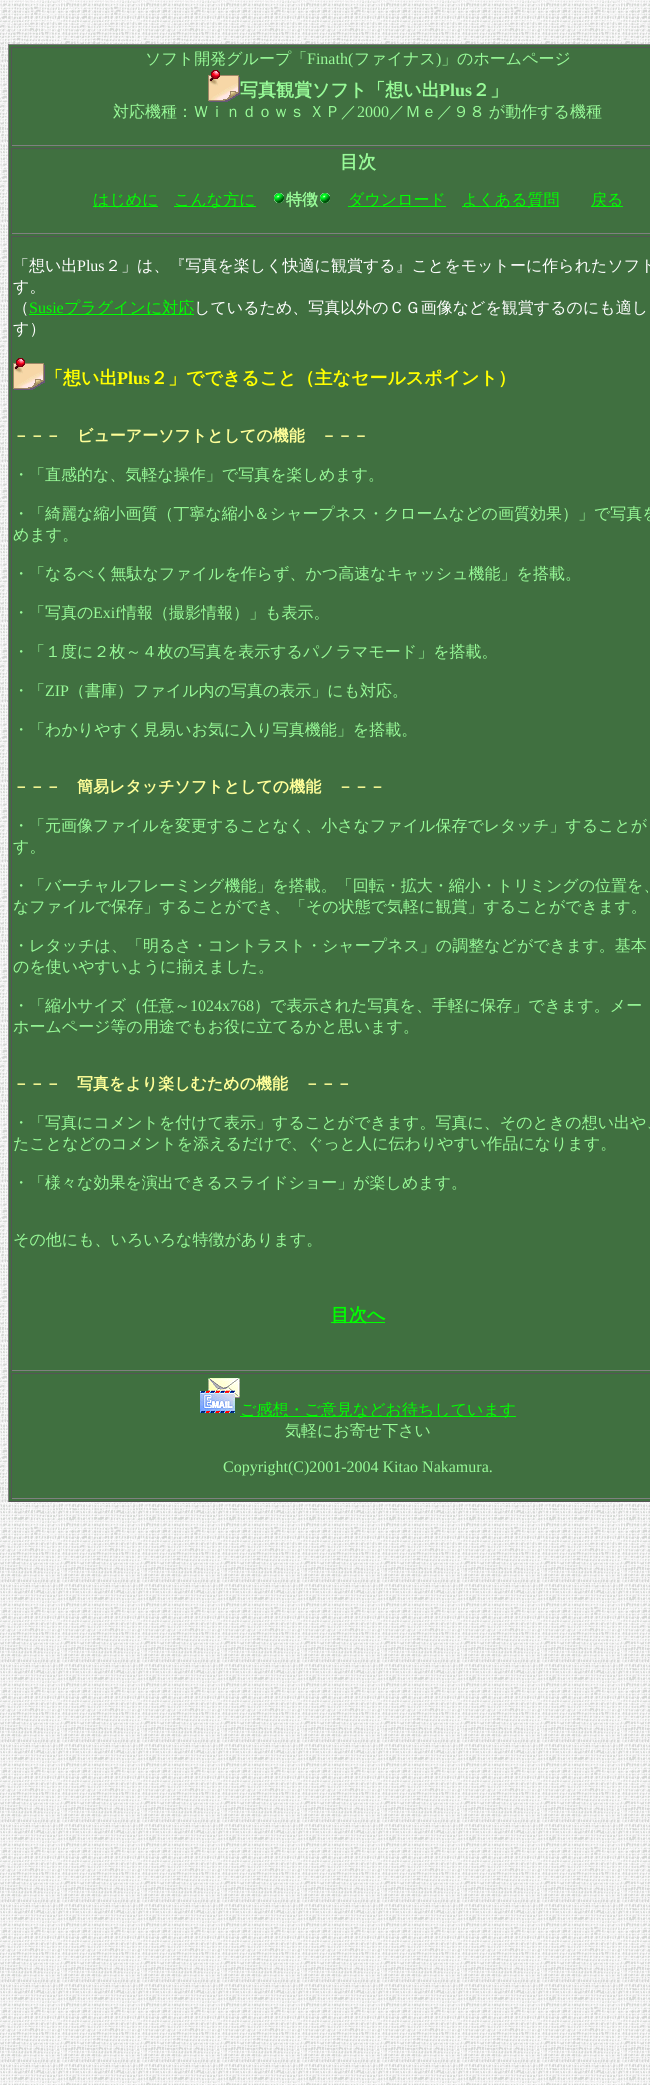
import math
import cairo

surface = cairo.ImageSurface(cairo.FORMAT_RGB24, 650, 2085)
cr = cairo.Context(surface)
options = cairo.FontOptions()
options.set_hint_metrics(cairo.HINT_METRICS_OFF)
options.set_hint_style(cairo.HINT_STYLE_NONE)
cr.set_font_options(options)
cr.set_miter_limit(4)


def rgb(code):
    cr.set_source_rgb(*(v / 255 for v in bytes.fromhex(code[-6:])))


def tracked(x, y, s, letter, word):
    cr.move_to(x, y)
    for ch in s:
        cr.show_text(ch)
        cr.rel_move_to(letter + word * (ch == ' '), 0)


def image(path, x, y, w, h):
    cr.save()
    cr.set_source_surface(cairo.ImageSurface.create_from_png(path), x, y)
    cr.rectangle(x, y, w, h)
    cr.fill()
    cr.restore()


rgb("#ffffff")
cr.paint()
image("img/1.png", 0, 0, 650, 2085)
for x, y, w, h, color in [
    (9, 45, 641, 1456, "#407040"),
    (8, 44, 642, 1, "#808080"),
    (8, 1501, 642, 1, "#555555"),
    (8, 44, 1, 1458, "#808080"),
    (11, 47, 639, 1, "#555555"),
    (11, 145, 639, 1, "#808080"),
    (11, 47, 1, 99, "#555555"),
]:
    rgb(color)
    cr.rectangle(x, y, w, h)
    cr.fill()
image("img/2.png", 208, 70, 32, 32)
for x, y, w, h, color in [
    (11, 148, 639, 1, "#555555"),
    (11, 233, 639, 1, "#808080"),
    (11, 148, 1, 86, "#555555"),
    (93, 206, 65, 1, "#00ff00"),
    (174, 206, 82, 1, "#00ff00"),
]:
    rgb(color)
    cr.rectangle(x, y, w, h)
    cr.fill()
image("img/3.png", 274, 193, 10, 10)
image("img/3.png", 320, 193, 10, 10)
for x, y, w, h, color in [
    (348, 206, 98, 1, "#00ff00"),
    (462, 206, 97, 1, "#00ff00"),
    (591, 206, 32, 1, "#00ff00"),
    (11, 236, 639, 1, "#555555"),
    (11, 1370, 639, 1, "#808080"),
    (11, 236, 1, 1135, "#555555"),
    (29, 314, 165, 1, "#00ff00"),
]:
    rgb(color)
    cr.rectangle(x, y, w, h)
    cr.fill()
image("img/2.png", 13, 358, 32, 32)
for x, y, w, h, color in [
    (331, 1322, 54, 1, "#00ff00"),
    (11, 1373, 639, 1, "#555555"),
    (11, 1498, 639, 1, "#808080"),
    (11, 1373, 1, 126, "#555555"),
]:
    rgb(color)
    cr.rectangle(x, y, w, h)
    cr.fill()
image("img/4.png", 200, 1378, 40, 35)
rgb("#00ff00")
cr.rectangle(240, 1416, 276, 1)
cr.fill()
cr.select_font_face("WenQuanYi Zen Hei Medium")
cr.set_font_size(16)
rgb("#98fb98")
cr.move_to(145, 64)
cr.show_text("ソフト開発グループ「")
cr.select_font_face("Liberation Serif")
cr.move_to(307, 64)
cr.show_text("Finath(")
cr.select_font_face("WenQuanYi Zen Hei Medium")
cr.move_to(354, 64)
cr.show_text("ファイナス")
cr.select_font_face("Liberation Serif")
cr.move_to(436, 64)
cr.show_text(")")
cr.select_font_face("WenQuanYi Zen Hei Medium")
cr.move_to(441, 64)
cr.show_text("」のホームページ")
cr.select_font_face("WenQuanYi Zen Hei", cairo.FONT_SLANT_NORMAL, cairo.FONT_WEIGHT_BOLD)
cr.set_font_size(18)
cr.move_to(240, 96)
cr.show_text("写真観賞ソフト「想い出")
cr.select_font_face("Liberation Serif", cairo.FONT_SLANT_NORMAL, cairo.FONT_WEIGHT_BOLD)
cr.move_to(439, 96)
cr.show_text("Plus")
cr.select_font_face("WenQuanYi Zen Hei", cairo.FONT_SLANT_NORMAL, cairo.FONT_WEIGHT_BOLD)
cr.move_to(472, 96)
cr.show_text("２」")
cr.select_font_face("WenQuanYi Zen Hei Medium")
cr.set_font_size(16)
tracked(113, 117, "対応機種：Ｗｉｎｄｏｗｓ ＸＰ／", 0, -1)
cr.select_font_face("Liberation Serif")
cr.move_to(357, 117)
cr.show_text("2000")
cr.select_font_face("WenQuanYi Zen Hei Medium")
tracked(389, 117, "／Ｍｅ／９８ が動作する機種", 0, -1)
cr.select_font_face("WenQuanYi Zen Hei", cairo.FONT_SLANT_NORMAL, cairo.FONT_WEIGHT_BOLD)
cr.set_font_size(18)
cr.move_to(340, 168)
cr.show_text("目次")
cr.select_font_face("WenQuanYi Zen Hei Medium")
cr.set_font_size(16)
rgb("#00ff00")
cr.move_to(93, 205)
cr.show_text("はじめに")
cr.move_to(174, 205)
cr.show_text("こんな方に")
cr.select_font_face("WenQuanYi Zen Hei", cairo.FONT_SLANT_NORMAL, cairo.FONT_WEIGHT_BOLD)
rgb("#98fb98")
cr.move_to(286, 205)
cr.show_text("特徴")
cr.select_font_face("WenQuanYi Zen Hei Medium")
rgb("#00ff00")
for x, y, s in [
    (348, 205, "ダウンロード"),
    (462, 205, "よくある質問"),
    (591, 205, "戻る"),
]:
    cr.move_to(x, y)
    cr.show_text(s)
rgb("#ffffff")
cr.move_to(13, 271)
cr.show_text("「想い出")
cr.select_font_face("Liberation Serif")
cr.move_to(77, 271)
cr.show_text("Plus")
cr.select_font_face("WenQuanYi Zen Hei Medium")
for x, y, s in [
    (105, 271, "２」は、『写真を楽しく快適に観賞する』ことをモットーに作られたソフト"),
    (13, 292, "す。"),
    (13, 313, "（"),
]:
    cr.move_to(x, y)
    cr.show_text(s)
cr.select_font_face("Liberation Serif")
rgb("#00ff00")
cr.move_to(29, 313)
cr.show_text("Susie")
cr.select_font_face("WenQuanYi Zen Hei Medium")
cr.move_to(64, 313)
cr.show_text("プラグインに対応")
rgb("#ffffff")
cr.move_to(194, 313)
cr.show_text("しているため、写真以外のＣＧ画像などを観賞するのにも適し")
cr.move_to(13, 334)
cr.show_text("す）")
cr.select_font_face("WenQuanYi Zen Hei", cairo.FONT_SLANT_NORMAL, cairo.FONT_WEIGHT_BOLD)
cr.set_font_size(18)
rgb("#ffff00")
cr.move_to(45, 384)
cr.show_text("「想い出")
cr.select_font_face("Liberation Serif", cairo.FONT_SLANT_NORMAL, cairo.FONT_WEIGHT_BOLD)
cr.move_to(117, 384)
cr.show_text("Plus")
cr.select_font_face("WenQuanYi Zen Hei", cairo.FONT_SLANT_NORMAL, cairo.FONT_WEIGHT_BOLD)
cr.move_to(150, 384)
cr.show_text("２」でできること（主なセールスポイント）")
cr.set_font_size(16)
rgb("#ffff99")
cr.move_to(13, 441)
cr.show_text("－－－　ビューアーソフトとしての機能　－－－")
cr.select_font_face("WenQuanYi Zen Hei Medium")
rgb("#98fb98")
for x, y, s in [
    (13, 480, "・「直感的な、気軽な操作」で写真を楽しめます。"),
    (13, 519, "・「綺麗な縮小画質（丁寧な縮小＆シャープネス・クロームなどの画質効果）」で写真を"),
    (13, 540, "めます。"),
    (13, 579, "・「なるべく無駄なファイルを作らず、かつ高速なキャッシュ機能」を搭載。"),
    (13, 618, "・「写真の"),
]:
    cr.move_to(x, y)
    cr.show_text(s)
cr.select_font_face("Liberation Serif")
cr.move_to(93, 618)
cr.show_text("Exif")
cr.select_font_face("WenQuanYi Zen Hei Medium")
for x, y, s in [
    (121, 618, "情報（撮影情報）」も表示。"),
    (13, 657, "・「１度に２枚～４枚の写真を表示するパノラマモード」を搭載。"),
    (13, 696, "・「"),
]:
    cr.move_to(x, y)
    cr.show_text(s)
cr.select_font_face("Liberation Serif")
cr.move_to(45, 696)
cr.show_text("ZIP")
cr.select_font_face("WenQuanYi Zen Hei Medium")
cr.move_to(69, 696)
cr.show_text("（書庫）ファイル内の写真の表示」にも対応。")
cr.move_to(13, 735)
cr.show_text("・「わかりやすく見易いお気に入り写真機能」を搭載。")
cr.select_font_face("WenQuanYi Zen Hei", cairo.FONT_SLANT_NORMAL, cairo.FONT_WEIGHT_BOLD)
rgb("#ffff99")
cr.move_to(13, 792)
cr.show_text("－－－　簡易レタッチソフトとしての機能　－－－")
cr.select_font_face("WenQuanYi Zen Hei Medium")
rgb("#98fb98")
for x, y, s in [
    (13, 831, "・「元画像ファイルを変更することなく、小さなファイル保存でレタッチ」することが"),
    (13, 852, "す。"),
    (13, 891, "・「バーチャルフレーミング機能」を搭載。「回転・拡大・縮小・トリミングの位置を、"),
    (13, 912, "なファイルで保存」することができ、「その状態で気軽に観賞」することができます。"),
    (13, 951, "・レタッチは、「明るさ・コントラスト・シャープネス」の調整などができます。基本"),
    (13, 972, "のを使いやすいように揃えました。"),
    (13, 1011, "・「縮小サイズ（任意～"),
]:
    cr.move_to(x, y)
    cr.show_text(s)
cr.select_font_face("Liberation Serif")
cr.move_to(190, 1011)
cr.show_text("1024x768")
cr.select_font_face("WenQuanYi Zen Hei Medium")
cr.move_to(254, 1011)
cr.show_text("）で表示された写真を、手軽に保存」できます。メー")
cr.move_to(13, 1032)
cr.show_text("ホームページ等の用途でもお役に立てるかと思います。")
cr.select_font_face("WenQuanYi Zen Hei", cairo.FONT_SLANT_NORMAL, cairo.FONT_WEIGHT_BOLD)
rgb("#ffff99")
cr.move_to(13, 1089)
cr.show_text("－－－　写真をより楽しむための機能　－－－")
cr.select_font_face("WenQuanYi Zen Hei Medium")
rgb("#98fb98")
for x, y, s in [
    (13, 1128, "・「写真にコメントを付けて表示」することができます。写真に、そのときの想い出や、"),
    (13, 1149, "たことなどのコメントを添えるだけで、ぐっと人に伝わりやすい作品になります。"),
    (13, 1188, "・「様々な効果を演出できるスライドショー」が楽しめます。"),
    (13, 1245, "その他にも、いろいろな特徴があります。"),
]:
    cr.move_to(x, y)
    cr.show_text(s)
cr.select_font_face("WenQuanYi Zen Hei", cairo.FONT_SLANT_NORMAL, cairo.FONT_WEIGHT_BOLD)
cr.set_font_size(18)
rgb("#00ff00")
cr.move_to(331, 1321)
cr.show_text("目次へ")
cr.select_font_face("WenQuanYi Zen Hei Medium")
cr.set_font_size(16)
cr.move_to(240, 1415)
cr.show_text("ご感想・ご意見などお待ちしています")
rgb("#98fb98")
cr.move_to(285, 1436)
cr.show_text("気軽にお寄せ下さい")
cr.select_font_face("Liberation Serif")
cr.move_to(223, 1472)
cr.show_text("Copyright(C)2001-2004 Kitao Nakamura.")
surface.write_to_png("page.png")
